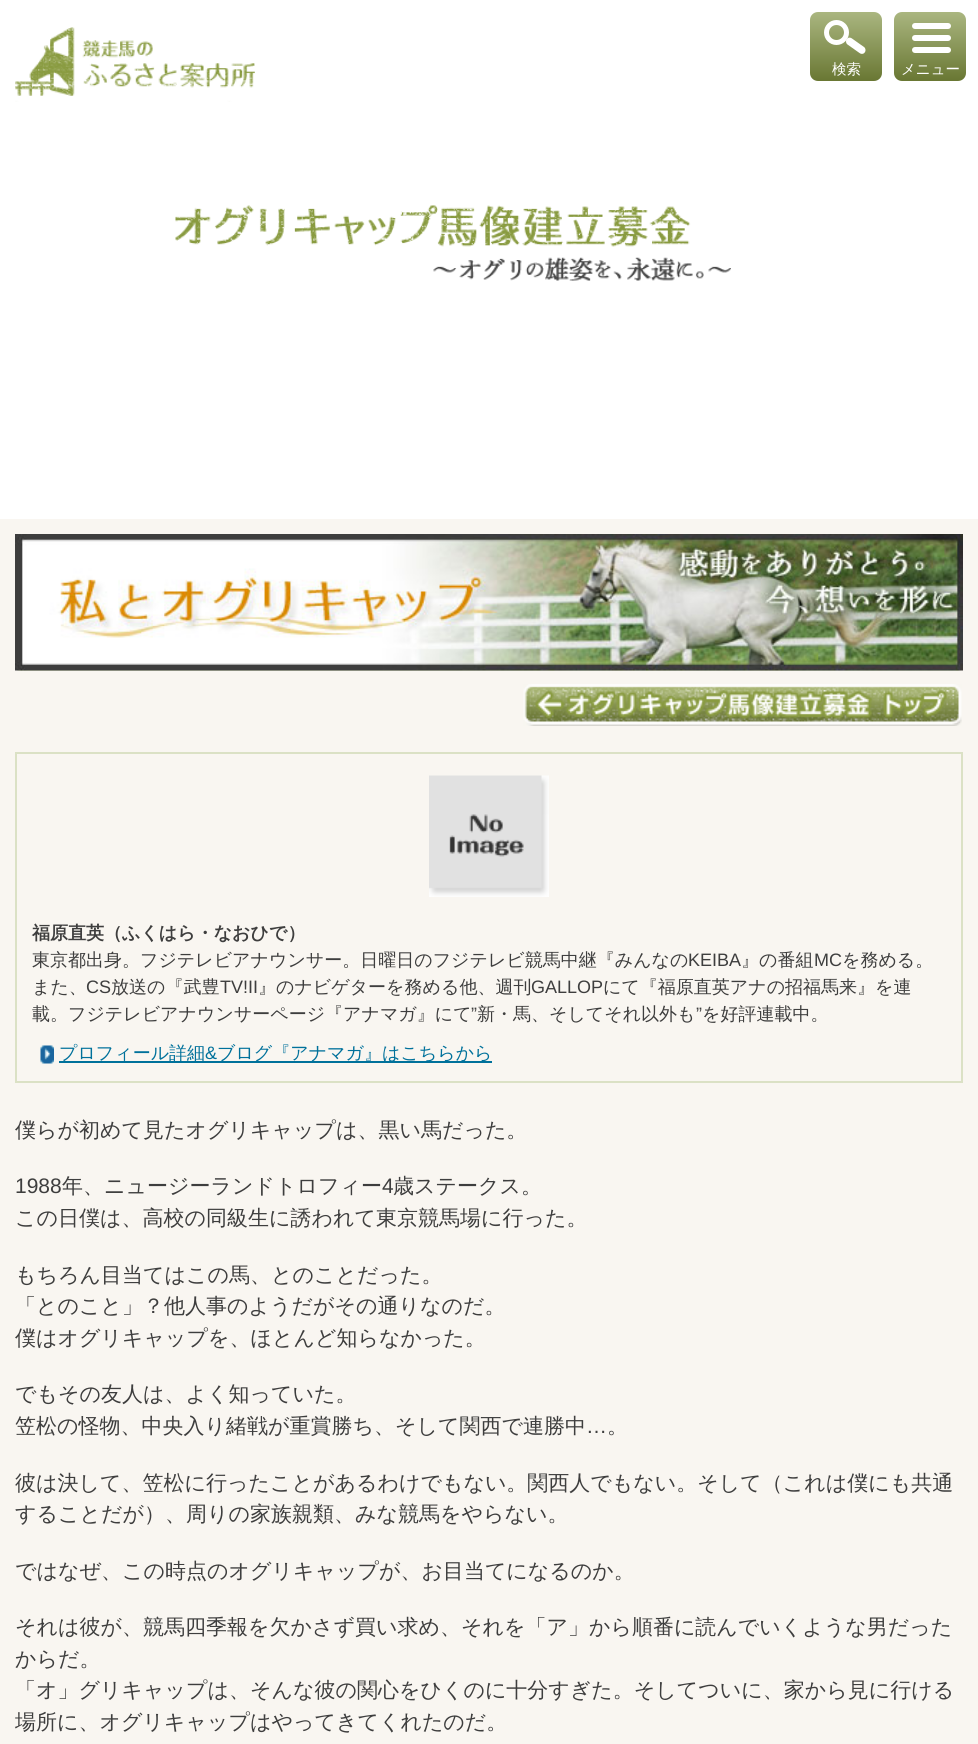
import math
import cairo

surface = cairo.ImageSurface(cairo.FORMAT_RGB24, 978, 1744)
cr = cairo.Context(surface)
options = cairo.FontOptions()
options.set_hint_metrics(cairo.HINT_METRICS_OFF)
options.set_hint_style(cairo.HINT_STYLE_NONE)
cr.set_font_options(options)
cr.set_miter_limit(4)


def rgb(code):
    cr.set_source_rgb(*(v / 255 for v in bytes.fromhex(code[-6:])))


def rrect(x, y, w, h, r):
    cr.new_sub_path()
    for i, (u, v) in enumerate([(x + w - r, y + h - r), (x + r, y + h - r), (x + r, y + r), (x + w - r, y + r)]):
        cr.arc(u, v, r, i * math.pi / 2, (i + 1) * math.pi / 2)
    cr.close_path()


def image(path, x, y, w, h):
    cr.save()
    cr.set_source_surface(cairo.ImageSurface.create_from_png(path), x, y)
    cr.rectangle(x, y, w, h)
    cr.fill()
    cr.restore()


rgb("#ffffff")
cr.paint()
image("img/1.png", 15, 27, 240, 75)
gradient = cairo.LinearGradient(846, 12, 846, 81)
gradient.add_color_stop_rgba(0, 0.667, 0.714, 0.502, 1)
gradient.add_color_stop_rgba(1, 0.412, 0.467, 0.2, 1)
cr.set_source(gradient)
rrect(810, 12, 72, 69, 8)
cr.fill()
cr.arc(836.5, 32.5, 10, 0, 2 * math.pi)
rgb("#ffffff")
cr.set_line_width(5)
cr.stroke()
cr.new_path()
cr.move_to(846.5, 39.5)
cr.curve_to(847.5, 37.5, 850, 37, 852, 38.5)
cr.line_to(864, 47)
cr.curve_to(865.5, 48, 866, 50.5, 865, 52)
cr.curve_to(864, 54, 861.5, 54.5, 859.5, 53)
cr.line_to(847.5, 44.5)
cr.curve_to(846, 43.5, 845.5, 41, 846.5, 39.5)
cr.close_path()
cr.fill()
gradient = cairo.LinearGradient(930, 12, 930, 81)
gradient.add_color_stop_rgba(0, 0.667, 0.714, 0.502, 1)
gradient.add_color_stop_rgba(1, 0.412, 0.467, 0.2, 1)
cr.set_source(gradient)
rrect(894, 12, 72, 69, 8)
cr.fill()
rgb("#ffffff")
rrect(912, 47, 39, 6, 3)
cr.fill()
rrect(912, 35, 39, 6, 3)
cr.fill()
rrect(912, 23, 39, 6, 3)
cr.fill()
image("img/2.png", 175, 205, 556, 76)
rgb("#f9f6f1")
cr.rectangle(0, 519, 978, 1225)
cr.fill()
rgb("#dbe1c5")
rrect(15, 534, 948, 137, 5)
cr.fill()
image("img/3.png", 15, 534, 948, 137)
image("img/4.png", 523, 684, 439, 42)
cr.rectangle(16, 753, 946, 329)
cr.set_line_width(2)
cr.stroke()
image("img/5.png", 429, 775, 120, 122)
image("img/6.png", 40, 1045, 14, 19)
rgb("#00719b")
cr.rectangle(59, 1061, 433, 2)
cr.fill()
cr.select_font_face("WenQuanYi Zen Hei Medium")
cr.set_font_size(14.5)
rgb("#ffffff")
cr.move_to(832, 74)
cr.show_text("検索")
cr.move_to(901, 74)
cr.show_text("メニュー")
cr.select_font_face("WenQuanYi Zen Hei", cairo.FONT_SLANT_NORMAL, cairo.FONT_WEIGHT_BOLD)
cr.set_font_size(18)
rgb("#3e3e3e")
cr.move_to(32, 939)
cr.show_text("福原直英（ふくはら・なおひで）")
cr.select_font_face("WenQuanYi Zen Hei Medium")
cr.move_to(32, 966)
cr.show_text("東京都出身。フジテレビアナウンサー。日曜日のフジテレビ競馬中継『みんなの")
cr.select_font_face("Liberation Sans")
cr.move_to(688, 966)
cr.show_text("KEIBA")
cr.select_font_face("WenQuanYi Zen Hei Medium")
cr.move_to(741, 966)
cr.show_text("』の番組")
cr.select_font_face("Liberation Sans")
cr.move_to(814, 966)
cr.show_text("MC")
cr.select_font_face("WenQuanYi Zen Hei Medium")
cr.move_to(842, 966)
cr.show_text("を務める。")
cr.move_to(32, 993)
cr.show_text("また、")
cr.select_font_face("Liberation Sans")
cr.move_to(86, 993)
cr.show_text("CS")
cr.select_font_face("WenQuanYi Zen Hei Medium")
cr.move_to(111, 993)
cr.show_text("放送の『武豊")
cr.select_font_face("Liberation Sans")
cr.move_to(220, 993)
cr.show_text("TV!II")
cr.select_font_face("WenQuanYi Zen Hei Medium")
cr.move_to(258, 993)
cr.show_text("』のナビゲターを務める他、週刊")
cr.select_font_face("Liberation Sans")
cr.move_to(531, 993)
cr.show_text("GALLOP")
cr.select_font_face("WenQuanYi Zen Hei Medium")
cr.move_to(603, 993)
cr.show_text("にて『福原直英アナの招福馬来』を連")
cr.move_to(32, 1020)
cr.show_text("載。フジテレビアナウンサーページ『アナマガ』にて")
cr.select_font_face("Liberation Sans")
cr.move_to(471, 1020)
cr.show_text("”")
cr.select_font_face("WenQuanYi Zen Hei Medium")
cr.move_to(477, 1020)
cr.show_text("新・馬、そしてそれ以外も")
cr.select_font_face("Liberation Sans")
cr.move_to(696, 1020)
cr.show_text("”")
cr.select_font_face("WenQuanYi Zen Hei Medium")
cr.move_to(702, 1020)
cr.show_text("を好評連載中。")
rgb("#00719b")
cr.move_to(59, 1059)
cr.show_text("プロフィール詳細")
cr.select_font_face("Liberation Sans")
cr.move_to(205, 1059)
cr.show_text("&")
cr.select_font_face("WenQuanYi Zen Hei Medium")
cr.move_to(217, 1059)
cr.show_text("ブログ『アナマガ』はこちらから")
cr.set_font_size(21)
rgb("#3e3e3e")
cr.move_to(15, 1137)
cr.show_text("僕らが初めて見たオグリキャップは、黒い馬だった。")
cr.select_font_face("Liberation Sans")
cr.move_to(15, 1193)
cr.show_text("1988")
cr.select_font_face("WenQuanYi Zen Hei Medium")
cr.move_to(62, 1193)
cr.show_text("年、ニュージーランドトロフィー")
cr.select_font_face("Liberation Sans")
cr.move_to(382, 1193)
cr.show_text("4")
cr.select_font_face("WenQuanYi Zen Hei Medium")
for x, y, s in [
    (393, 1193, "歳ステークス。"),
    (15, 1225, "この日僕は、高校の同級生に誘われて東京競馬場に行った。"),
    (15, 1282, "もちろん目当てはこの馬、とのことだった。"),
    (15, 1313, "「とのこと」？他人事のようだがその通りなのだ。"),
    (15, 1345, "僕はオグリキャップを、ほとんど知らなかった。"),
    (15, 1401, "でもその友人は、よく知っていた。"),
    (15, 1433, "笠松の怪物、中央入り緒戦が重賞勝ち、そして関西で連勝中"),
]:
    cr.move_to(x, y)
    cr.show_text(s)
cr.select_font_face("Liberation Sans")
cr.move_to(586, 1433)
cr.show_text("…")
cr.select_font_face("WenQuanYi Zen Hei Medium")
for x, y, s in [
    (607, 1433, "。"),
    (15, 1490, "彼は決して、笠松に行ったことがあるわけでもない。関西人でもない。そして（これは僕にも共通"),
    (15, 1521, "することだが）、周りの家族親類、みな競馬をやらない。"),
    (15, 1578, "ではなぜ、この時点のオグリキャップが、お目当てになるのか。"),
    (15, 1634, "それは彼が、競馬四季報を欠かさず買い求め、それを「ア」から順番に読んでいくような男だった"),
    (15, 1666, "からだ。"),
    (15, 1697, "「オ」グリキャップは、そんな彼の関心をひくのに十分すぎた。そしてついに、家から見に行ける"),
    (15, 1729, "場所に、オグリキャップはやってきてくれたのだ。"),
]:
    cr.move_to(x, y)
    cr.show_text(s)
surface.write_to_png("page.png")
